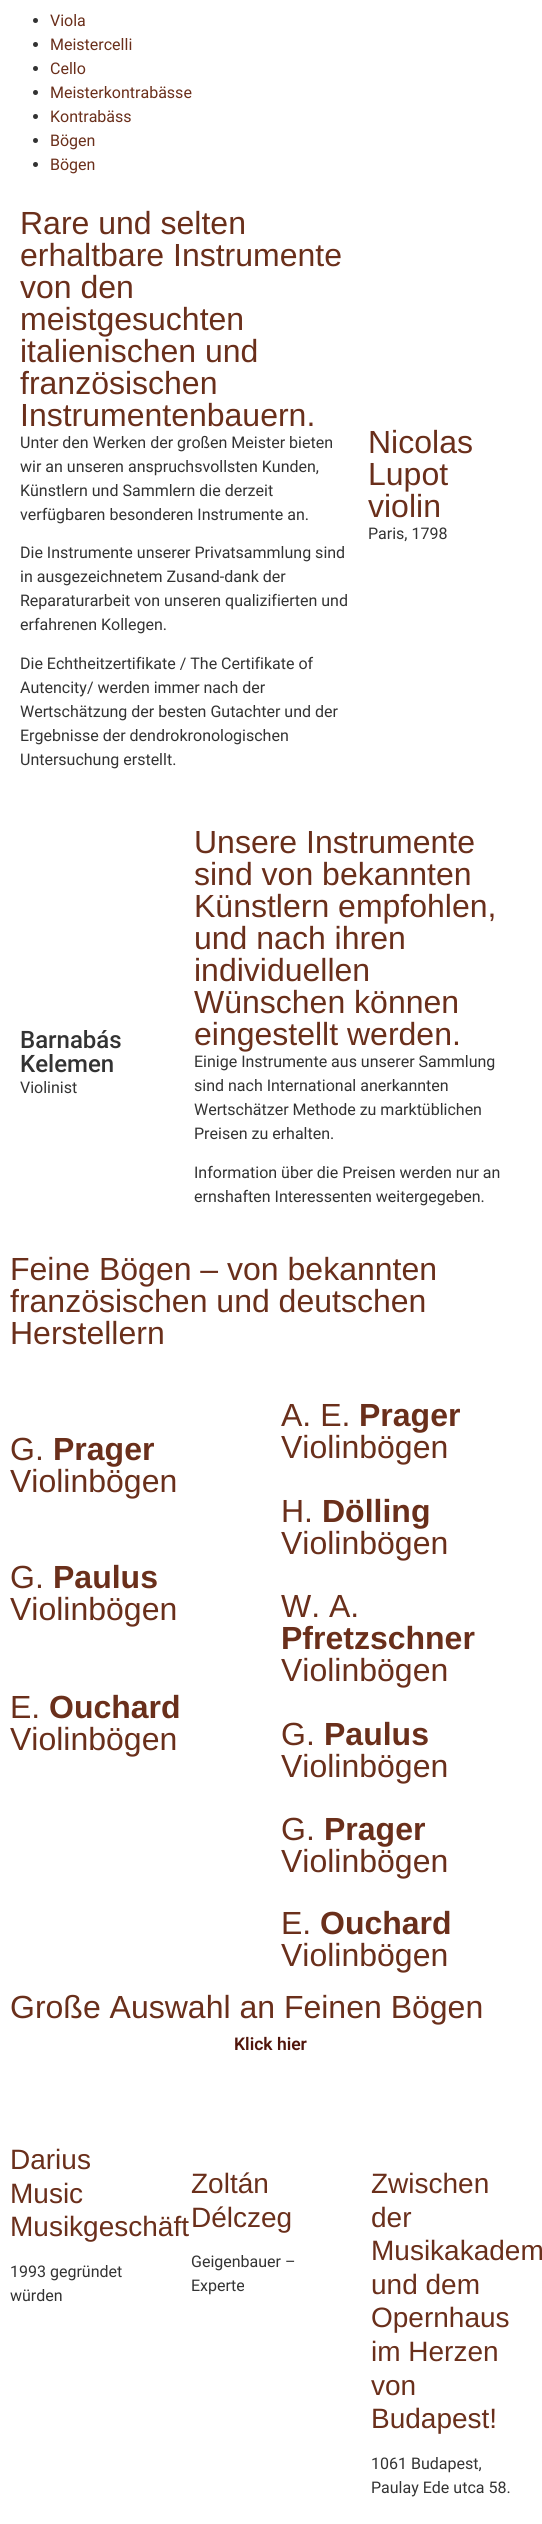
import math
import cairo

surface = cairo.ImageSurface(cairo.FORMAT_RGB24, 542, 2524)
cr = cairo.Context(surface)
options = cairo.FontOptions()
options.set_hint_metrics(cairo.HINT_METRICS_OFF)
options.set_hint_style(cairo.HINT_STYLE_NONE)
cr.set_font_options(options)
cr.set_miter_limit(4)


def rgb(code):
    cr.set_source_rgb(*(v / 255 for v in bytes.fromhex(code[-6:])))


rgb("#ffffff")
cr.paint()
rgb("#333333")
cr.arc(35.5, 20.5, 2.5, 0, 2 * math.pi)
cr.fill()
cr.arc(35.5, 44.5, 2.5, 0, 2 * math.pi)
cr.fill()
cr.arc(35.5, 68.5, 2.5, 0, 2 * math.pi)
cr.fill()
cr.arc(35.5, 92.5, 2.5, 0, 2 * math.pi)
cr.fill()
cr.arc(35.5, 116.5, 2.5, 0, 2 * math.pi)
cr.fill()
cr.arc(35.5, 140.5, 2.5, 0, 2 * math.pi)
cr.fill()
cr.arc(35.5, 164.5, 2.5, 0, 2 * math.pi)
cr.fill()
cr.select_font_face("Roboto")
cr.set_font_size(16)
rgb("#6a2f1b")
for x, y, s in [
    (50, 26, "Viola"),
    (50, 50, "Meistercelli"),
    (50, 74, "Cello"),
    (50, 98, "Meisterkontrabässe"),
    (50, 122, "Kontrabäss"),
    (50, 146, "Bögen"),
    (50, 170, "Bögen"),
]:
    cr.move_to(x, y)
    cr.show_text(s)
cr.select_font_face("Liberation Sans")
cr.set_font_size(32)
for x, y, s in [
    (20, 234, "Rare und selten"),
    (20, 266, "erhaltbare Instrumente"),
    (20, 298, "von den"),
    (20, 330, "meistgesuchten"),
    (20, 362, "italienischen und"),
    (20, 394, "französischen"),
    (20, 426, "Instrumentenbauern."),
]:
    cr.move_to(x, y)
    cr.show_text(s)
cr.select_font_face("Roboto")
cr.set_font_size(16)
rgb("#333333")
for x, y, s in [
    (20, 448, "Unter den Werken der großen Meister bieten"),
    (20, 472, "wir an unseren anspruchsvollsten Kunden,"),
    (20, 496, "Künstlern und Sammlern die derzeit"),
    (20, 520, "verfügbaren besonderen Instrumente an."),
    (20, 558, "Die Instrumente unserer Privatsammlung sind"),
    (20, 582, "in ausgezeichnetem Zusand-dank der"),
    (20, 606, "Reparaturarbeit von unseren qualizifierten und"),
    (20, 630, "erfahrenen Kollegen."),
    (20, 669, "Die Echtheitzertifikate / The Certifikate of"),
    (20, 693, "Autencity/ werden immer nach der"),
    (20, 717, "Wertschätzung der besten Gutachter und der"),
    (20, 741, "Ergebnisse der dendrokronologischen"),
    (20, 765, "Untersuchung erstellt."),
]:
    cr.move_to(x, y)
    cr.show_text(s)
cr.select_font_face("Liberation Sans")
cr.set_font_size(32)
rgb("#6a2f1b")
for x, y, s in [
    (368, 453, "Nicolas"),
    (368, 485, "Lupot"),
    (368, 517, "violin"),
]:
    cr.move_to(x, y)
    cr.show_text(s)
cr.select_font_face("Roboto")
cr.set_font_size(16)
rgb("#333333")
cr.move_to(368, 539)
cr.show_text("Paris, 1798")
cr.select_font_face("Roboto Medium")
cr.set_font_size(24)
cr.move_to(20, 1048)
cr.show_text("Barnabás")
cr.move_to(20, 1072)
cr.show_text("Kelemen")
cr.select_font_face("Roboto")
cr.set_font_size(16)
cr.move_to(20, 1093)
cr.show_text("Violinist")
cr.select_font_face("Liberation Sans")
cr.set_font_size(32)
rgb("#6a2f1b")
for x, y, s in [
    (194, 853, "Unsere Instrumente"),
    (194, 885, "sind von bekannten"),
    (194, 917, "Künstlern empfohlen,"),
    (194, 949, "und nach ihren"),
    (194, 981, "individuellen"),
    (194, 1013, "Wünschen können"),
    (194, 1045, "eingestellt werden."),
]:
    cr.move_to(x, y)
    cr.show_text(s)
cr.select_font_face("Roboto")
cr.set_font_size(16)
rgb("#333333")
for x, y, s in [
    (194, 1067, "Einige Instrumente aus unserer Sammlung"),
    (194, 1091, "sind nach International anerkannten"),
    (194, 1115, "Wertschätzer Methode zu marktüblichen"),
    (194, 1139, "Preisen zu erhalten."),
    (194, 1178, "Information über die Preisen werden nur an"),
    (194, 1202, "ernshaften Interessenten weitergegeben."),
]:
    cr.move_to(x, y)
    cr.show_text(s)
cr.select_font_face("Liberation Sans")
cr.set_font_size(32)
rgb("#6a2f1b")
for x, y, s in [
    (10, 1280, "Feine Bögen – von bekannten"),
    (10, 1312, "französischen und deutschen"),
    (10, 1344, "Herstellern"),
    (10, 1460, "G."),
]:
    cr.move_to(x, y)
    cr.show_text(s)
cr.select_font_face("Liberation Sans", cairo.FONT_SLANT_NORMAL, cairo.FONT_WEIGHT_BOLD)
cr.move_to(53, 1460)
cr.show_text("Prager")
cr.select_font_face("Liberation Sans")
cr.move_to(10, 1492)
cr.show_text("Violinbögen")
cr.move_to(10, 1588)
cr.show_text("G.")
cr.select_font_face("Liberation Sans", cairo.FONT_SLANT_NORMAL, cairo.FONT_WEIGHT_BOLD)
cr.move_to(53, 1588)
cr.show_text("Paulus")
cr.select_font_face("Liberation Sans")
cr.move_to(10, 1620)
cr.show_text("Violinbögen")
cr.move_to(10, 1718)
cr.show_text("E.")
cr.select_font_face("Liberation Sans", cairo.FONT_SLANT_NORMAL, cairo.FONT_WEIGHT_BOLD)
cr.move_to(49, 1718)
cr.show_text("Ouchard")
cr.select_font_face("Liberation Sans")
cr.move_to(10, 1750)
cr.show_text("Violinbögen")
cr.move_to(281, 1426)
cr.show_text("A. E.")
cr.select_font_face("Liberation Sans", cairo.FONT_SLANT_NORMAL, cairo.FONT_WEIGHT_BOLD)
cr.move_to(359, 1426)
cr.show_text("Prager")
cr.select_font_face("Liberation Sans")
cr.move_to(281, 1458)
cr.show_text("Violinbögen")
cr.move_to(281, 1522)
cr.show_text("H.")
cr.select_font_face("Liberation Sans", cairo.FONT_SLANT_NORMAL, cairo.FONT_WEIGHT_BOLD)
cr.move_to(322, 1522)
cr.show_text("Dölling")
cr.select_font_face("Liberation Sans")
cr.move_to(281, 1554)
cr.show_text("Violinbögen")
cr.move_to(281, 1617)
cr.show_text("W. A.")
cr.select_font_face("Liberation Sans", cairo.FONT_SLANT_NORMAL, cairo.FONT_WEIGHT_BOLD)
cr.move_to(281, 1649)
cr.show_text("Pfretzschner")
cr.select_font_face("Liberation Sans")
cr.move_to(281, 1681)
cr.show_text("Violinbögen")
cr.move_to(281, 1745)
cr.show_text("G.")
cr.select_font_face("Liberation Sans", cairo.FONT_SLANT_NORMAL, cairo.FONT_WEIGHT_BOLD)
cr.move_to(324, 1745)
cr.show_text("Paulus")
cr.select_font_face("Liberation Sans")
cr.move_to(281, 1777)
cr.show_text("Violinbögen")
cr.move_to(281, 1840)
cr.show_text("G.")
cr.select_font_face("Liberation Sans", cairo.FONT_SLANT_NORMAL, cairo.FONT_WEIGHT_BOLD)
cr.move_to(324, 1840)
cr.show_text("Prager")
cr.select_font_face("Liberation Sans")
cr.move_to(281, 1872)
cr.show_text("Violinbögen")
cr.move_to(281, 1934)
cr.show_text("E.")
cr.select_font_face("Liberation Sans", cairo.FONT_SLANT_NORMAL, cairo.FONT_WEIGHT_BOLD)
cr.move_to(320, 1934)
cr.show_text("Ouchard")
cr.select_font_face("Liberation Sans")
cr.move_to(281, 1966)
cr.show_text("Violinbögen")
cr.move_to(10, 2018)
cr.show_text("Große Auswahl an Feinen Bögen")
cr.select_font_face("Roboto SemiBold")
cr.set_font_size(17.5)
rgb("#50150b")
cr.move_to(234, 2050)
cr.show_text("Klick hier")
cr.select_font_face("Liberation Sans")
cr.set_font_size(28)
rgb("#6a2f1b")
for x, y, s in [
    (10, 2169, "Darius"),
    (10, 2203, "Music"),
    (10, 2236, "Musikgeschäft"),
]:
    cr.move_to(x, y)
    cr.show_text(s)
cr.select_font_face("Roboto")
cr.set_font_size(16)
rgb("#333333")
cr.move_to(10, 2277)
cr.show_text("1993 gegründet")
cr.move_to(10, 2301)
cr.show_text("würden")
cr.select_font_face("Liberation Sans")
cr.set_font_size(28)
rgb("#6a2f1b")
cr.move_to(191, 2193)
cr.show_text("Zoltán")
cr.move_to(191, 2227)
cr.show_text("Délczeg")
cr.select_font_face("Roboto")
cr.set_font_size(16)
rgb("#333333")
cr.move_to(191, 2267)
cr.show_text("Geigenbauer –")
cr.move_to(191, 2291)
cr.show_text("Experte")
cr.select_font_face("Liberation Sans")
cr.set_font_size(28)
rgb("#6a2f1b")
for x, y, s in [
    (371, 2193, "Zwischen"),
    (371, 2227, "der"),
    (371, 2260, "Musikakadem"),
    (371, 2294, "und dem"),
    (371, 2327, "Opernhaus"),
    (371, 2361, "im Herzen"),
    (371, 2395, "von"),
    (371, 2428, "Budapest!"),
]:
    cr.move_to(x, y)
    cr.show_text(s)
cr.select_font_face("Roboto")
cr.set_font_size(16)
rgb("#333333")
cr.move_to(371, 2469)
cr.show_text("1061 Budapest,")
cr.move_to(371, 2493)
cr.show_text("Paulay Ede utca 58.")
surface.write_to_png("page.png")
